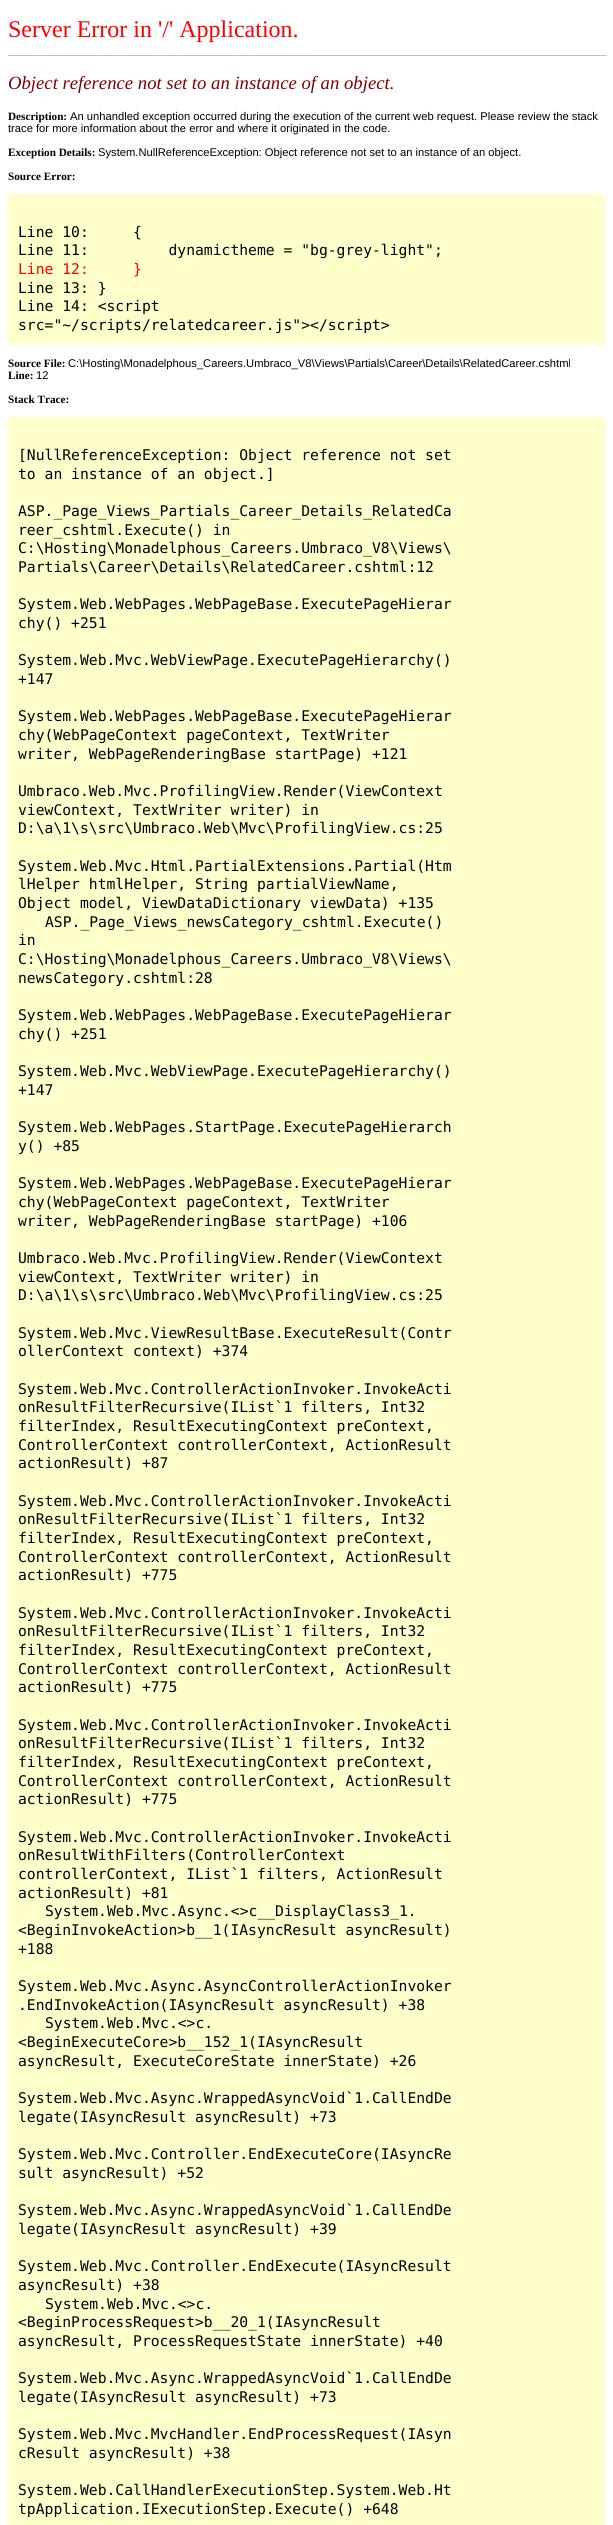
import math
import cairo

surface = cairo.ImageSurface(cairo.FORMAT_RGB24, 613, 2525)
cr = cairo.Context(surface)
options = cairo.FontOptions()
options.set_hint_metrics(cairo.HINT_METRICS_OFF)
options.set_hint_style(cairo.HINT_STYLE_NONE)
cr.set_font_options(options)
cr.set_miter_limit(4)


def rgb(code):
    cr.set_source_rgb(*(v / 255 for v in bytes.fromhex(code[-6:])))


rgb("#ffffff")
cr.paint()
for x, y, w, h, color in [
    (8, 55, 599, 1, "#c0c0c0"),
    (8, 194, 597, 151, "#ffffcc"),
    (8, 417, 597, 2108, "#ffffcc"),
]:
    rgb(color)
    cr.rectangle(x, y, w, h)
    cr.fill()
cr.select_font_face("Liberation Serif")
cr.set_font_size(24)
rgb("#ff0000")
cr.move_to(8, 37)
cr.show_text("Server Error in '/' Application.")
cr.select_font_face("Liberation Serif", cairo.FONT_SLANT_ITALIC)
cr.set_font_size(18.7)
rgb("#800000")
cr.move_to(8, 89)
cr.show_text("Object reference not set to an instance of an object.")
cr.select_font_face("Liberation Serif", cairo.FONT_SLANT_NORMAL, cairo.FONT_WEIGHT_BOLD)
cr.set_font_size(11.2)
rgb("#000000")
cr.move_to(8, 120)
cr.show_text("Description:")
cr.select_font_face("Liberation Sans")
cr.move_to(70, 120)
cr.show_text("An unhandled exception occurred during the execution of the current web request. Please review the stack")
cr.move_to(8, 132)
cr.show_text("trace for more information about the error and where it originated in the code.")
cr.select_font_face("Liberation Serif", cairo.FONT_SLANT_NORMAL, cairo.FONT_WEIGHT_BOLD)
cr.move_to(8, 156)
cr.show_text("Exception Details:")
cr.select_font_face("Liberation Sans")
cr.move_to(98, 156)
cr.show_text("System.NullReferenceException: Object reference not set to an instance of an object.")
cr.select_font_face("Liberation Serif", cairo.FONT_SLANT_NORMAL, cairo.FONT_WEIGHT_BOLD)
cr.move_to(8, 180)
cr.show_text("Source Error:")
cr.select_font_face("DejaVu Sans Mono")
cr.set_font_size(14.7)
cr.move_to(18, 237)
cr.show_text("Line 10:     {")
cr.move_to(18, 255)
cr.show_text("Line 11:         dynamictheme = \"bg-grey-light\";")
rgb("#ff0000")
cr.move_to(18, 274)
cr.show_text("Line 12:     }")
rgb("#000000")
for x, y, s in [
    (18, 293, "Line 13: }"),
    (18, 311, "Line 14: <script"),
    (18, 330, "src=\"~/scripts/relatedcareer.js\"></script>"),
]:
    cr.move_to(x, y)
    cr.show_text(s)
cr.select_font_face("Liberation Serif", cairo.FONT_SLANT_NORMAL, cairo.FONT_WEIGHT_BOLD)
cr.set_font_size(11.2)
cr.move_to(8, 367)
cr.show_text("Source File:")
cr.select_font_face("Liberation Sans")
cr.move_to(68, 367)
cr.show_text("C:\\Hosting\\Monadelphous_Careers.Umbraco_V8\\Views\\Partials\\Career\\Details\\RelatedCareer.cshtml")
cr.select_font_face("Liberation Serif", cairo.FONT_SLANT_NORMAL, cairo.FONT_WEIGHT_BOLD)
cr.move_to(8, 379)
cr.show_text("Line:")
cr.select_font_face("Liberation Sans")
cr.move_to(36, 379)
cr.show_text("12")
cr.select_font_face("Liberation Serif", cairo.FONT_SLANT_NORMAL, cairo.FONT_WEIGHT_BOLD)
cr.move_to(8, 403)
cr.show_text("Stack Trace:")
cr.select_font_face("DejaVu Sans Mono")
cr.set_font_size(14.7)
for x, y, s in [
    (18, 460, "[NullReferenceException: Object reference not set"),
    (18, 479, "to an instance of an object.]"),
    (18, 516, "ASP._Page_Views_Partials_Career_Details_RelatedCa"),
    (18, 535, "reer_cshtml.Execute() in"),
    (18, 553, "C:\\Hosting\\Monadelphous_Careers.Umbraco_V8\\Views\\"),
    (18, 572, "Partials\\Career\\Details\\RelatedCareer.cshtml:12"),
    (18, 609, "System.Web.WebPages.WebPageBase.ExecutePageHierar"),
    (18, 628, "chy() +251"),
    (18, 665, "System.Web.Mvc.WebViewPage.ExecutePageHierarchy()"),
    (18, 684, "+147"),
    (18, 721, "System.Web.WebPages.WebPageBase.ExecutePageHierar"),
    (18, 740, "chy(WebPageContext pageContext, TextWriter"),
    (18, 759, "writer, WebPageRenderingBase startPage) +121"),
    (18, 796, "Umbraco.Web.Mvc.ProfilingView.Render(ViewContext"),
    (18, 815, "viewContext, TextWriter writer) in"),
    (18, 833, "D:\\a\\1\\s\\src\\Umbraco.Web\\Mvc\\ProfilingView.cs:25"),
    (18, 871, "System.Web.Mvc.Html.PartialExtensions.Partial(Htm"),
    (18, 889, "lHelper htmlHelper, String partialViewName,"),
    (18, 908, "Object model, ViewDataDictionary viewData) +135"),
    (45, 927, "ASP._Page_Views_newsCategory_cshtml.Execute()"),
    (18, 945, "in"),
    (18, 964, "C:\\Hosting\\Monadelphous_Careers.Umbraco_V8\\Views\\"),
    (18, 983, "newsCategory.cshtml:28"),
    (18, 1020, "System.Web.WebPages.WebPageBase.ExecutePageHierar"),
    (18, 1039, "chy() +251"),
    (18, 1076, "System.Web.Mvc.WebViewPage.ExecutePageHierarchy()"),
    (18, 1095, "+147"),
    (18, 1132, "System.Web.WebPages.StartPage.ExecutePageHierarch"),
    (18, 1151, "y() +85"),
    (18, 1188, "System.Web.WebPages.WebPageBase.ExecutePageHierar"),
    (18, 1207, "chy(WebPageContext pageContext, TextWriter"),
    (18, 1226, "writer, WebPageRenderingBase startPage) +106"),
    (18, 1263, "Umbraco.Web.Mvc.ProfilingView.Render(ViewContext"),
    (18, 1282, "viewContext, TextWriter writer) in"),
    (18, 1300, "D:\\a\\1\\s\\src\\Umbraco.Web\\Mvc\\ProfilingView.cs:25"),
    (18, 1338, "System.Web.Mvc.ViewResultBase.ExecuteResult(Contr"),
    (18, 1356, "ollerContext context) +374"),
    (18, 1394, "System.Web.Mvc.ControllerActionInvoker.InvokeActi"),
    (18, 1412, "onResultFilterRecursive(IList`1 filters, Int32"),
    (18, 1431, "filterIndex, ResultExecutingContext preContext,"),
    (18, 1450, "ControllerContext controllerContext, ActionResult"),
    (18, 1468, "actionResult) +87"),
    (18, 1506, "System.Web.Mvc.ControllerActionInvoker.InvokeActi"),
    (18, 1524, "onResultFilterRecursive(IList`1 filters, Int32"),
    (18, 1543, "filterIndex, ResultExecutingContext preContext,"),
    (18, 1562, "ControllerContext controllerContext, ActionResult"),
    (18, 1580, "actionResult) +775"),
    (18, 1618, "System.Web.Mvc.ControllerActionInvoker.InvokeActi"),
    (18, 1636, "onResultFilterRecursive(IList`1 filters, Int32"),
    (18, 1655, "filterIndex, ResultExecutingContext preContext,"),
    (18, 1674, "ControllerContext controllerContext, ActionResult"),
    (18, 1692, "actionResult) +775"),
    (18, 1730, "System.Web.Mvc.ControllerActionInvoker.InvokeActi"),
    (18, 1748, "onResultFilterRecursive(IList`1 filters, Int32"),
    (18, 1767, "filterIndex, ResultExecutingContext preContext,"),
    (18, 1786, "ControllerContext controllerContext, ActionResult"),
    (18, 1804, "actionResult) +775"),
    (18, 1842, "System.Web.Mvc.ControllerActionInvoker.InvokeActi"),
    (18, 1860, "onResultWithFilters(ControllerContext"),
    (18, 1879, "controllerContext, IList`1 filters, ActionResult"),
    (18, 1898, "actionResult) +81"),
    (45, 1916, "System.Web.Mvc.Async.<>c__DisplayClass3_1."),
    (18, 1935, "<BeginInvokeAction>b__1(IAsyncResult asyncResult)"),
    (18, 1954, "+188"),
    (18, 1991, "System.Web.Mvc.Async.AsyncControllerActionInvoker"),
    (18, 2010, ".EndInvokeAction(IAsyncResult asyncResult) +38"),
    (45, 2028, "System.Web.Mvc.<>c."),
    (18, 2047, "<BeginExecuteCore>b__152_1(IAsyncResult"),
    (18, 2066, "asyncResult, ExecuteCoreState innerState) +26"),
    (18, 2103, "System.Web.Mvc.Async.WrappedAsyncVoid`1.CallEndDe"),
    (18, 2122, "legate(IAsyncResult asyncResult) +73"),
    (18, 2159, "System.Web.Mvc.Controller.EndExecuteCore(IAsyncRe"),
    (18, 2178, "sult asyncResult) +52"),
    (18, 2215, "System.Web.Mvc.Async.WrappedAsyncVoid`1.CallEndDe"),
    (18, 2234, "legate(IAsyncResult asyncResult) +39"),
    (18, 2271, "System.Web.Mvc.Controller.EndExecute(IAsyncResult"),
    (18, 2290, "asyncResult) +38"),
    (45, 2309, "System.Web.Mvc.<>c."),
    (18, 2327, "<BeginProcessRequest>b__20_1(IAsyncResult"),
    (18, 2346, "asyncResult, ProcessRequestState innerState) +40"),
    (18, 2383, "System.Web.Mvc.Async.WrappedAsyncVoid`1.CallEndDe"),
    (18, 2402, "legate(IAsyncResult asyncResult) +73"),
    (18, 2439, "System.Web.Mvc.MvcHandler.EndProcessRequest(IAsyn"),
    (18, 2458, "cResult asyncResult) +38"),
    (18, 2495, "System.Web.CallHandlerExecutionStep.System.Web.Ht"),
    (18, 2514, "tpApplication.IExecutionStep.Execute() +648"),
]:
    cr.move_to(x, y)
    cr.show_text(s)
surface.write_to_png("page.png")
